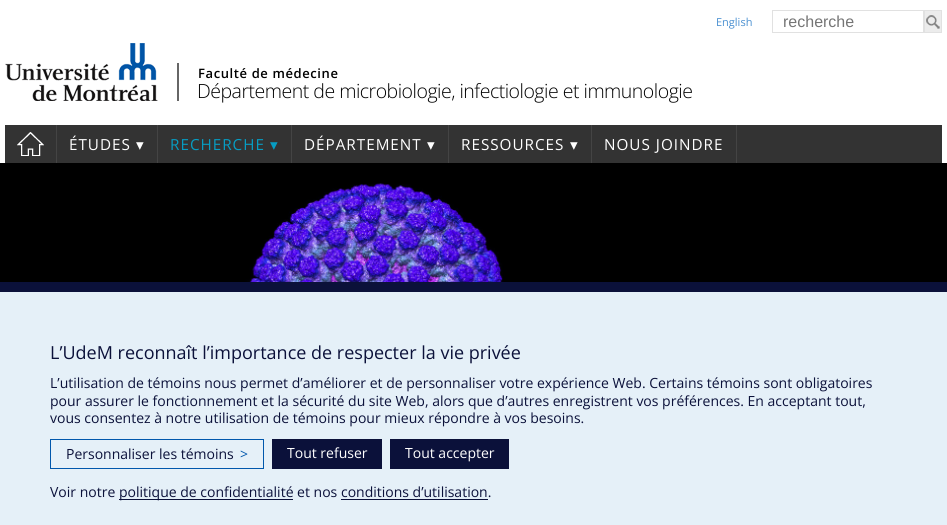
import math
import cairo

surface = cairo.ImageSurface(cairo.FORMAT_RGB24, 947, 525)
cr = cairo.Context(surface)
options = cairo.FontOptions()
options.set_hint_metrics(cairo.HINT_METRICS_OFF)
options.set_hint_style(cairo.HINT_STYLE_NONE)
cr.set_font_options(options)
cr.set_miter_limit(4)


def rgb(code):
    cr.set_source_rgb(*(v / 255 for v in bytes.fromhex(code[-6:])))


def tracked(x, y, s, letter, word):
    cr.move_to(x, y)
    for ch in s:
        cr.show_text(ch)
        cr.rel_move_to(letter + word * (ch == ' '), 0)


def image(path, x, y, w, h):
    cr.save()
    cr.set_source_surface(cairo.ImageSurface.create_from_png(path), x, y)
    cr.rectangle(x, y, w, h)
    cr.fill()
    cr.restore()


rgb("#ffffff")
cr.paint()
cr.rectangle(772.5, 10.5, 151, 22)
rgb("#e1e1e1")
cr.set_line_width(1)
cr.stroke()
rgb("#ececec")
cr.rectangle(925, 11, 16, 21)
cr.fill()
image("img/1.png", 926, 15, 14, 14)
cr.rectangle(924.5, 10.5, 17, 22)
rgb("#e1e1e1")
cr.stroke()
image("img/2.png", 5, 43, 153, 58)
for x, y, w, h, color in [
    (177, 63, 2, 38, "#666666"),
    (5, 125, 937, 38, "#333333"),
    (56, 125, 1, 38, "#444444"),
]:
    rgb(color)
    cr.rectangle(x, y, w, h)
    cr.fill()
image("img/3.png", 17, 132, 27, 24)
for x, y, w, h, color in [
    (157, 125, 1, 38, "#444444"),
    (291, 125, 1, 38, "#444444"),
    (448, 125, 1, 38, "#444444"),
    (591, 125, 1, 38, "#444444"),
    (736, 125, 1, 38, "#444444"),
]:
    rgb(color)
    cr.rectangle(x, y, w, h)
    cr.fill()
image("img/4.png", 0, 163, 947, 119)
rgb("#e5f0f8")
cr.rectangle(0, 292, 947, 233)
cr.fill()
rgb("#0b113a")
cr.rectangle(0, 282, 947, 10)
cr.fill()
cr.rectangle(50.5, 439.5, 213, 29)
rgb("#0057ac")
cr.stroke()
for x, y, w, h, color in [
    (272, 439, 110, 30, "#0b113a"),
    (390, 439, 119, 30, "#0b113a"),
    (119, 499, 174, 1, "#0b113a"),
    (341, 499, 147, 1, "#0b113a"),
]:
    rgb(color)
    cr.rectangle(x, y, w, h)
    cr.fill()
cr.select_font_face("Open Sans")
cr.set_font_size(11)
rgb("#4a90d1")
cr.move_to(716, 26)
cr.show_text("English")
cr.select_font_face("Liberation Sans")
cr.set_font_size(16)
rgb("#757575")
cr.move_to(783, 27)
cr.show_text("recherche")
cr.select_font_face("Open Sans SemiBold")
cr.set_font_size(13)
rgb("#000000")
tracked(198, 78, "Faculté de médecine", 0.6, 0)
cr.select_font_face("Open Sans Light")
cr.set_font_size(19.5)
tracked(197, 98, "Département de microbiologie, infectiologie et immunologie", -0.5, 0)
cr.select_font_face("Open Sans")
cr.set_font_size(15.25)
rgb("#ffffff")
tracked(69, 150, "ÉTUDES", 1, 0)
cr.select_font_face("DejaVu Sans")
tracked(136, 150, "▾", 1, 0)
cr.select_font_face("Open Sans")
rgb("#069dc3")
tracked(170, 150, "RECHERCHE", 1, 0)
cr.select_font_face("DejaVu Sans")
tracked(270, 150, "▾", 1, 0)
cr.select_font_face("Open Sans")
rgb("#ffffff")
tracked(304, 150, "DÉPARTEMENT", 1, 0)
cr.select_font_face("DejaVu Sans")
tracked(427, 150, "▾", 1, 0)
cr.select_font_face("Open Sans")
tracked(461, 150, "RESSOURCES", 1, 0)
cr.select_font_face("DejaVu Sans")
tracked(570, 150, "▾", 1, 0)
cr.select_font_face("Open Sans")
tracked(604, 150, "NOUS JOINDRE", 1, 0)
cr.set_font_size(18)
rgb("#0b113a")
cr.move_to(50, 359)
cr.show_text("L’UdeM reconnaît l’importance de respecter la vie privée")
cr.set_font_size(14)
for x, y, s in [
    (50, 388, "L’utilisation de témoins nous permet d’améliorer et de personnaliser votre expérience Web. Certains témoins sont obligatoires"),
    (50, 406, "pour assurer le fonctionnement et la sécurité du site Web, alors que d’autres enregistrent vos préférences. En acceptant tout,"),
    (50, 423, "vous consentez à notre utilisation de témoins pour mieux répondre à vos besoins."),
    (66, 459, "Personnaliser les témoins"),
]:
    cr.move_to(x, y)
    cr.show_text(s)
rgb("#0057ac")
cr.move_to(240, 459)
cr.show_text(">")
rgb("#ffffff")
cr.move_to(287, 458)
cr.show_text("Tout refuser")
cr.move_to(405, 458)
cr.show_text("Tout accepter")
rgb("#0b113a")
cr.move_to(50, 497)
cr.show_text("Voir notre")
cr.move_to(119, 497)
cr.show_text("politique de confidentialité et nos conditions d’utilisation.")
surface.write_to_png("page.png")
